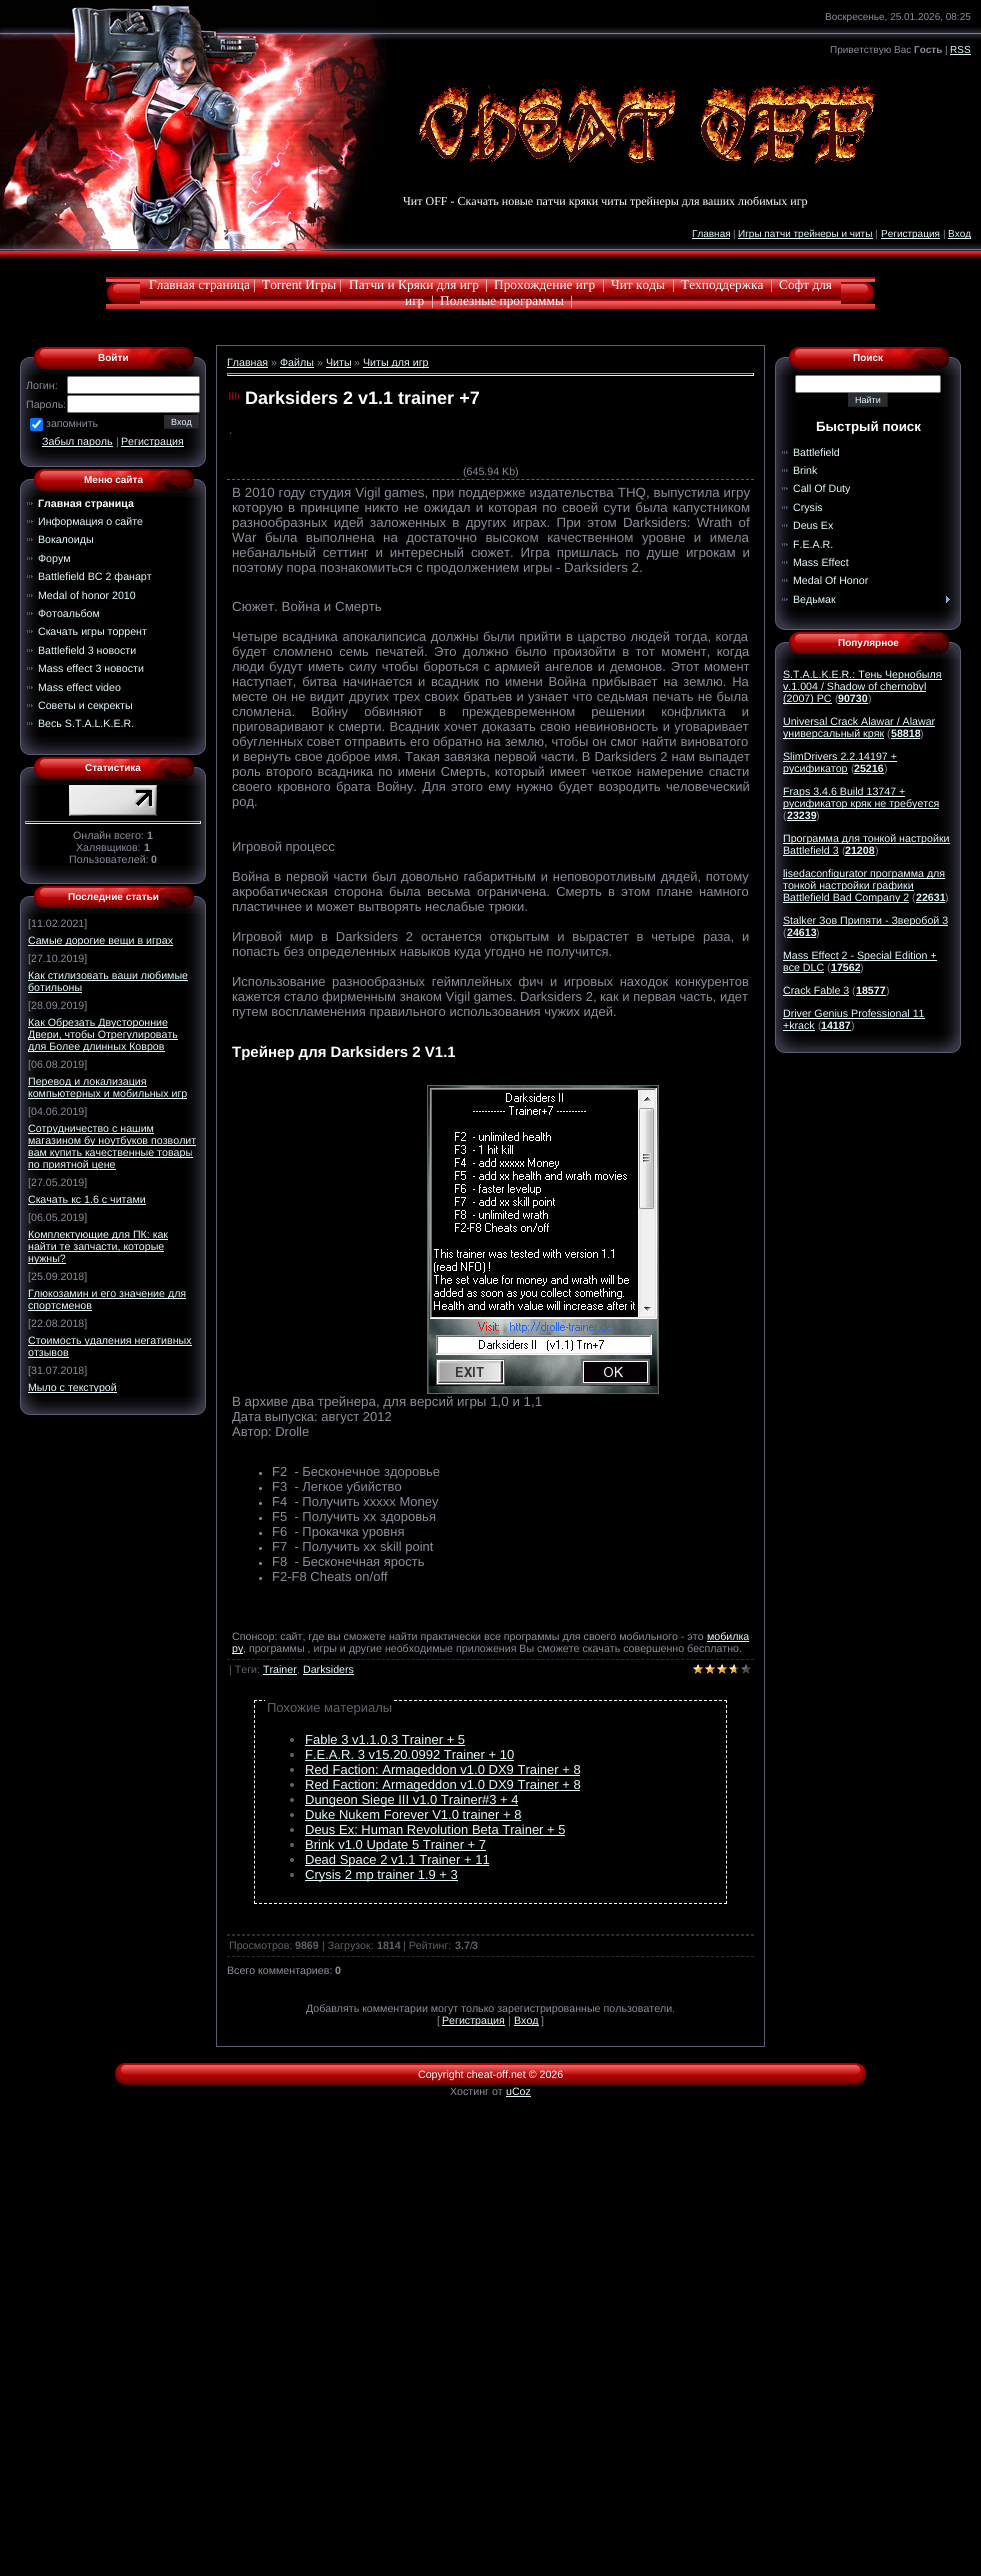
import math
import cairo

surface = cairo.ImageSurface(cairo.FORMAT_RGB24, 981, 2576)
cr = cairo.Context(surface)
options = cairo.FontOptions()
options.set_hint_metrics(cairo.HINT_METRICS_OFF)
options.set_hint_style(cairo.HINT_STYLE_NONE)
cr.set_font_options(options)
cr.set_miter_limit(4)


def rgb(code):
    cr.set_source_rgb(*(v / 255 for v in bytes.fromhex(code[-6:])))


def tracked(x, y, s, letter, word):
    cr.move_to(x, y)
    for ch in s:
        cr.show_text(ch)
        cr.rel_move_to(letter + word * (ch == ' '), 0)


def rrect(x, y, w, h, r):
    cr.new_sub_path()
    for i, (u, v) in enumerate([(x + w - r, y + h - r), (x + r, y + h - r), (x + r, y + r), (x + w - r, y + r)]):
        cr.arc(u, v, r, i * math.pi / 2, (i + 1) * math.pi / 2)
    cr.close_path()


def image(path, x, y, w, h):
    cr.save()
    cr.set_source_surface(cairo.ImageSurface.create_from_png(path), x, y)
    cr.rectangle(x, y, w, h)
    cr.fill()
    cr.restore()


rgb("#000000")
cr.paint()
image("img/1.png", 0, 27, 981, 232)
image("img/2.png", 0, 0, 381, 33)
image("img/3.png", 0, 33, 387, 33)
rgb("#e4fafd")
cr.rectangle(950, 54, 21, 1)
cr.fill()
image("img/4.png", 0, 66, 387, 151)
image("img/5.png", 419, 84, 456, 80)
image("img/6.png", 0, 217, 344, 33)
for x, y, w, h, color in [
    (692, 238, 38, 1, "#e4fafd"),
    (738, 238, 135, 1, "#e4fafd"),
    (881, 238, 59, 1, "#e4fafd"),
    (948, 238, 23, 1, "#e4fafd"),
]:
    rgb(color)
    cr.rectangle(x, y, w, h)
    cr.fill()
image("img/7.png", 0, 250, 352, 8)
image("img/8.png", 106, 277, 769, 32)
image("img/9.png", 106, 282, 34, 22)
image("img/10.png", 841, 282, 34, 22)
image("img/11.png", 20, 345, 186, 30)
image("img/12.png", 20, 375, 186, 73)
rgb("#ffffff")
rrect(67.5, 376.5, 132, 17, 1.5)
cr.fill_preserve()
rgb("#767676")
cr.set_line_width(1)
cr.stroke()
rgb("#ffffff")
rrect(67.5, 395.5, 132, 17, 1.5)
cr.fill_preserve()
rgb("#767676")
cr.stroke()
rgb("#0075ff")
rrect(30, 418, 13, 13, 2)
cr.fill()
cr.new_path()
cr.move_to(32.5, 424.5)
cr.line_to(35, 427)
cr.line_to(40.5, 420.5)
rgb("#ffffff")
cr.set_line_width(2.1)
cr.stroke()
for x, y, w, h, color in [
    (165, 415, 34, 13, "#2b2b30"),
    (199, 415, 1, 14, "#1d1d20"),
    (164, 428, 36, 1, "#1d1d20"),
    (164, 415, 1, 14, "#2b2b30"),
    (42, 446, 71, 1, "#e4fafd"),
    (121, 446, 63, 1, "#e4fafd"),
]:
    rgb(color)
    cr.rectangle(x, y, w, h)
    cr.fill()
image("img/13.png", 20, 448, 186, 19)
image("img/11.png", 20, 467, 186, 30)
image("img/14.png", 20, 497, 186, 239)
image("img/15.png", 27, 502, 6, 3)
image("img/15.png", 27, 520, 6, 3)
image("img/15.png", 27, 538, 6, 3)
image("img/15.png", 27, 557, 6, 3)
image("img/15.png", 27, 575, 6, 3)
image("img/15.png", 27, 594, 6, 3)
image("img/15.png", 27, 612, 6, 3)
image("img/15.png", 27, 630, 6, 3)
image("img/15.png", 27, 649, 6, 3)
image("img/15.png", 27, 667, 6, 3)
image("img/15.png", 27, 686, 6, 3)
image("img/15.png", 27, 704, 6, 3)
image("img/15.png", 27, 722, 6, 3)
image("img/13.png", 20, 736, 186, 19)
image("img/11.png", 20, 755, 186, 30)
image("img/16.png", 20, 785, 186, 80)
image("img/17.png", 69, 785, 88, 31)
for x, y, w, h, color in [
    (25, 821, 176, 1, "#9f9f9f"),
    (200, 821, 1, 3, "#eeeeee"),
    (25, 823, 176, 1, "#eeeeee"),
    (25, 821, 1, 3, "#9f9f9f"),
]:
    rgb(color)
    cr.rectangle(x, y, w, h)
    cr.fill()
image("img/13.png", 20, 865, 186, 19)
image("img/11.png", 20, 884, 186, 30)
image("img/18.png", 20, 914, 186, 482)
for x, y, w, h, color in [
    (28, 945, 145, 1, "#e4fafd"),
    (28, 980, 160, 1, "#e4fafd"),
    (28, 992, 54, 1, "#e4fafd"),
    (28, 1027, 140, 1, "#e4fafd"),
    (28, 1039, 150, 1, "#e4fafd"),
    (28, 1051, 137, 1, "#e4fafd"),
    (28, 1086, 119, 1, "#e4fafd"),
    (28, 1098, 159, 1, "#e4fafd"),
    (28, 1133, 126, 1, "#e4fafd"),
    (28, 1145, 168, 1, "#e4fafd"),
    (28, 1157, 165, 1, "#e4fafd"),
    (28, 1169, 88, 1, "#e4fafd"),
    (28, 1204, 118, 1, "#e4fafd"),
    (28, 1239, 140, 1, "#e4fafd"),
    (28, 1251, 136, 1, "#e4fafd"),
    (28, 1263, 38, 1, "#e4fafd"),
    (28, 1298, 158, 1, "#e4fafd"),
    (28, 1310, 64, 1, "#e4fafd"),
    (28, 1345, 164, 1, "#e4fafd"),
    (28, 1357, 41, 1, "#e4fafd"),
    (28, 1392, 89, 1, "#e4fafd"),
]:
    rgb(color)
    cr.rectangle(x, y, w, h)
    cr.fill()
image("img/13.png", 20, 1396, 186, 19)
cr.rectangle(216.5, 345.5, 548, 1701)
rgb("#5b5c74")
cr.set_line_width(1)
cr.stroke()
for x, y, w, h, color in [
    (227, 367, 41, 1, "#e4fafd"),
    (280, 367, 34, 1, "#e4fafd"),
    (326, 367, 25, 1, "#e4fafd"),
    (363, 367, 66, 1, "#e4fafd"),
    (227, 373, 527, 1, "#9f9f9f"),
    (753, 373, 1, 3, "#eeeeee"),
    (227, 375, 527, 1, "#eeeeee"),
    (227, 373, 1, 3, "#9f9f9f"),
]:
    rgb(color)
    cr.rectangle(x, y, w, h)
    cr.fill()
image("img/19.png", 229, 392, 11, 8)
cr.new_path()
cr.move_to(227, 479.5)
cr.line_to(754, 479.5)
rgb("#5b5c74")
cr.set_dash([3, 1.99])
cr.stroke()
image("img/20.png", 427, 1085, 232, 309)
rgb("#8c8c9c")
cr.arc(260.5, 1473.5, 1.5, 0, 2 * math.pi)
cr.fill()
cr.arc(260.5, 1488.5, 1.5, 0, 2 * math.pi)
cr.fill()
cr.arc(260.5, 1503.5, 1.5, 0, 2 * math.pi)
cr.fill()
cr.arc(260.5, 1518.5, 1.5, 0, 2 * math.pi)
cr.fill()
cr.arc(260.5, 1533.5, 1.5, 0, 2 * math.pi)
cr.fill()
cr.arc(260.5, 1548.5, 1.5, 0, 2 * math.pi)
cr.fill()
cr.arc(260.5, 1563.5, 1.5, 0, 2 * math.pi)
cr.fill()
cr.arc(260.5, 1578.5, 1.5, 0, 2 * math.pi)
cr.fill()
rgb("#e4fafd")
cr.rectangle(707, 1641, 42, 1)
cr.fill()
cr.rectangle(232, 1653, 11, 1)
cr.fill()
cr.new_path()
cr.move_to(227, 1659.5)
cr.line_to(754, 1659.5)
rgb("#2b2b30")
cr.stroke()
cr.new_path()
cr.move_to(227, 1934.5)
cr.line_to(754, 1934.5)
cr.stroke()
rgb("#e4fafd")
cr.rectangle(263, 1674, 34, 1)
cr.fill()
cr.rectangle(303, 1674, 51, 1)
cr.fill()
image("img/21.png", 693, 1664, 59, 10)
image("img/22.png", 692, 1663, 44, 11)
cr.new_path()
cr.move_to(254, 1700.5)
cr.line_to(727, 1700.5)
rgb("#ffffff")
cr.set_dash([3, 2])
cr.stroke()
cr.new_path()
cr.move_to(726.5, 1700)
cr.line_to(726.5, 1904)
cr.set_dash([3, 2.02])
cr.stroke()
cr.new_path()
cr.move_to(254, 1903.5)
cr.line_to(727, 1903.5)
cr.set_dash([3, 2])
cr.stroke()
cr.new_path()
cr.move_to(254.5, 1700)
cr.line_to(254.5, 1904)
cr.set_dash([3, 2.02])
cr.stroke()
rgb("#000000")
cr.rectangle(265, 1700, 127, 1)
cr.fill()
rgb("#60606b")
cr.arc(292, 1740, 2, 0, 2 * math.pi)
cr.fill()
rgb("#e4fafd")
cr.rectangle(305, 1745, 160, 1)
cr.fill()
rgb("#60606b")
cr.arc(292, 1755, 2, 0, 2 * math.pi)
cr.fill()
rgb("#e4fafd")
cr.rectangle(305, 1760, 209, 1)
cr.fill()
rgb("#60606b")
cr.arc(292, 1770, 2, 0, 2 * math.pi)
cr.fill()
rgb("#e4fafd")
cr.rectangle(305, 1775, 275, 1)
cr.fill()
rgb("#60606b")
cr.arc(292, 1785, 2, 0, 2 * math.pi)
cr.fill()
rgb("#e4fafd")
cr.rectangle(305, 1790, 275, 1)
cr.fill()
rgb("#60606b")
cr.arc(292, 1800, 2, 0, 2 * math.pi)
cr.fill()
rgb("#e4fafd")
cr.rectangle(305, 1805, 213, 1)
cr.fill()
rgb("#60606b")
cr.arc(292, 1815, 2, 0, 2 * math.pi)
cr.fill()
rgb("#e4fafd")
cr.rectangle(305, 1820, 216, 1)
cr.fill()
rgb("#60606b")
cr.arc(292, 1830, 2, 0, 2 * math.pi)
cr.fill()
rgb("#e4fafd")
cr.rectangle(305, 1835, 260, 1)
cr.fill()
rgb("#60606b")
cr.arc(292, 1845, 2, 0, 2 * math.pi)
cr.fill()
rgb("#e4fafd")
cr.rectangle(305, 1850, 181, 1)
cr.fill()
rgb("#60606b")
cr.arc(292, 1860, 2, 0, 2 * math.pi)
cr.fill()
rgb("#e4fafd")
cr.rectangle(305, 1865, 184, 1)
cr.fill()
rgb("#60606b")
cr.arc(292, 1875, 2, 0, 2 * math.pi)
cr.fill()
rgb("#e4fafd")
cr.rectangle(305, 1880, 153, 1)
cr.fill()
cr.new_path()
cr.move_to(227, 1935.5)
cr.line_to(754, 1935.5)
rgb("#2b2b30")
cr.set_dash([3, 1.99])
cr.stroke()
cr.new_path()
cr.move_to(227, 1956.5)
cr.line_to(754, 1956.5)
cr.stroke()
rgb("#e4fafd")
cr.rectangle(442, 2025, 63, 1)
cr.fill()
cr.rectangle(514, 2025, 25, 1)
cr.fill()
image("img/11.png", 775, 345, 186, 30)
image("img/23.png", 775, 375, 186, 236)
rgb("#ffffff")
rrect(795.5, 375.5, 145, 17, 1.5)
cr.fill_preserve()
rgb("#767676")
cr.set_dash([])
cr.stroke()
for x, y, w, h, color in [
    (849, 393, 38, 13, "#2b2b30"),
    (887, 393, 1, 14, "#1d1d20"),
    (848, 406, 40, 1, "#1d1d20"),
    (848, 393, 1, 14, "#2b2b30"),
]:
    rgb(color)
    cr.rectangle(x, y, w, h)
    cr.fill()
image("img/15.png", 782, 451, 6, 3)
image("img/15.png", 782, 469, 6, 3)
image("img/15.png", 782, 487, 6, 3)
image("img/15.png", 782, 506, 6, 3)
image("img/15.png", 782, 524, 6, 3)
image("img/15.png", 782, 543, 6, 3)
image("img/15.png", 782, 561, 6, 3)
image("img/15.png", 782, 579, 6, 3)
image("img/15.png", 782, 598, 6, 3)
image("img/24.png", 946, 596, 4, 7)
image("img/13.png", 775, 611, 186, 19)
image("img/11.png", 775, 630, 186, 30)
image("img/25.png", 775, 660, 186, 374)
for x, y, w, h, color in [
    (783, 679, 159, 1, "#e4fafd"),
    (783, 691, 143, 1, "#e4fafd"),
    (783, 703, 49, 1, "#e4fafd"),
    (838, 703, 30, 1, "#e4fafd"),
    (783, 726, 152, 1, "#e4fafd"),
    (783, 738, 101, 1, "#e4fafd"),
    (891, 738, 29, 1, "#e4fafd"),
    (783, 761, 114, 1, "#e4fafd"),
    (783, 773, 65, 1, "#e4fafd"),
    (854, 773, 30, 1, "#e4fafd"),
    (783, 796, 122, 1, "#e4fafd"),
    (783, 808, 156, 1, "#e4fafd"),
    (787, 820, 29, 1, "#e4fafd"),
    (783, 843, 167, 1, "#e4fafd"),
    (783, 855, 56, 1, "#e4fafd"),
    (783, 878, 162, 1, "#e4fafd"),
    (783, 890, 131, 1, "#e4fafd"),
    (783, 902, 126, 1, "#e4fafd"),
    (916, 902, 29, 1, "#e4fafd"),
    (783, 925, 165, 1, "#e4fafd"),
    (787, 937, 29, 1, "#e4fafd"),
    (783, 960, 154, 1, "#e4fafd"),
    (783, 972, 41, 1, "#e4fafd"),
    (831, 972, 29, 1, "#e4fafd"),
    (783, 995, 66, 1, "#e4fafd"),
    (856, 995, 30, 1, "#e4fafd"),
    (783, 1018, 142, 1, "#e4fafd"),
    (783, 1030, 32, 1, "#e4fafd"),
]:
    rgb(color)
    cr.rectangle(x, y, w, h)
    cr.fill()
image("img/13.png", 775, 1034, 186, 19)
image("img/26.png", 126, 2063, 729, 22)
image("img/27.png", 114, 2063, 12, 22)
image("img/28.png", 855, 2063, 12, 22)
cr.rectangle(506, 2096, 25, 1)
cr.fill()
cr.select_font_face("Liberation Sans")
cr.set_font_size(10)
rgb("#8c8c9c")
cr.move_to(825, 20)
cr.show_text("Воскресенье, 25.01.2026, 08:25")
cr.move_to(830, 53)
cr.show_text("Приветствую Вас")
cr.select_font_face("Liberation Sans", cairo.FONT_SLANT_NORMAL, cairo.FONT_WEIGHT_BOLD)
cr.move_to(914, 53)
cr.show_text("Гость")
cr.select_font_face("Liberation Sans")
cr.move_to(945, 53)
cr.show_text("|")
rgb("#e4fafd")
cr.move_to(950, 53)
cr.show_text("RSS")
cr.select_font_face("Liberation Serif")
cr.set_font_size(12)
rgb("#ffffff")
cr.move_to(403, 205)
cr.show_text("Чит OFF - Скачать новые патчи кряки читы трейнеры для ваших любимых игр")
cr.select_font_face("Liberation Sans")
cr.set_font_size(10)
rgb("#e4fafd")
cr.move_to(692, 237)
cr.show_text("Главная")
rgb("#8c8c9c")
cr.move_to(733, 237)
cr.show_text("|")
rgb("#e4fafd")
cr.move_to(738, 237)
cr.show_text("Игры патчи трейнеры и читы")
rgb("#8c8c9c")
cr.move_to(875, 237)
cr.show_text("|")
rgb("#e4fafd")
cr.move_to(881, 237)
cr.show_text("Регистрация")
rgb("#8c8c9c")
cr.move_to(943, 237)
cr.show_text("|")
rgb("#e4fafd")
cr.move_to(948, 237)
cr.show_text("Вход")
cr.select_font_face("Liberation Serif")
cr.set_font_size(13.35)
rgb("#ffffff")
for x, y, s in [
    (149, 289, "Главная страница |"),
    (262, 289, "Torrent Игры |"),
    (349, 289, "Патчи и Кряки для игр"),
    (485, 289, "|"),
    (494, 289, "Прохождение игр"),
    (602, 289, "|"),
    (611, 289, "Чит коды"),
    (672, 289, "|"),
    (681, 289, "Техподдержка"),
    (770, 289, "|"),
    (779, 289, "Софт для"),
    (405, 305, "игр"),
    (431, 305, "|"),
    (440, 305, "Полезные программы"),
    (570, 305, "|"),
]:
    cr.move_to(x, y)
    cr.show_text(s)
cr.select_font_face("Liberation Sans", cairo.FONT_SLANT_NORMAL, cairo.FONT_WEIGHT_BOLD)
cr.set_font_size(10)
cr.move_to(98, 361)
cr.show_text("Войти")
cr.select_font_face("Liberation Sans")
cr.set_font_size(10.65)
rgb("#8c8c9c")
for x, y, s in [
    (26, 389, "Логин:"),
    (26, 408, "Пароль:"),
    (46, 427, "запомнить"),
]:
    cr.move_to(x, y)
    cr.show_text(s)
cr.set_font_size(9)
rgb("#e4fafd")
cr.move_to(171, 425)
cr.show_text("Вход")
cr.set_font_size(10.65)
cr.move_to(42, 445)
cr.show_text("Забыл пароль")
rgb("#8c8c9c")
cr.move_to(116, 445)
cr.show_text("|")
rgb("#e4fafd")
cr.move_to(121, 445)
cr.show_text("Регистрация")
cr.select_font_face("Liberation Sans", cairo.FONT_SLANT_NORMAL, cairo.FONT_WEIGHT_BOLD)
cr.set_font_size(10)
rgb("#ffffff")
cr.move_to(84, 483)
cr.show_text("Меню сайта")
cr.set_font_size(10.65)
cr.move_to(38, 507)
cr.show_text("Главная страница")
cr.select_font_face("Liberation Sans")
rgb("#e4fafd")
for x, y, s in [
    (38, 525, "Информация о сайте"),
    (38, 543, "Вокалоиды"),
    (38, 562, "Форум"),
    (38, 580, "Battlefield BC 2 фанарт"),
    (38, 599, "Medal of honor 2010"),
    (38, 617, "Фотоальбом"),
    (38, 635, "Скачать игры торрент"),
    (38, 654, "Battlefield 3 новости"),
    (38, 672, "Mass effect 3 новости"),
    (38, 691, "Mass effect video"),
    (38, 709, "Советы и секректы"),
    (38, 727, "Весь S.T.A.L.K.E.R."),
]:
    cr.move_to(x, y)
    cr.show_text(s)
cr.select_font_face("Liberation Sans", cairo.FONT_SLANT_NORMAL, cairo.FONT_WEIGHT_BOLD)
cr.set_font_size(10)
rgb("#ffffff")
cr.move_to(85, 771)
cr.show_text("Статистика")
cr.select_font_face("Liberation Sans")
cr.set_font_size(10.65)
rgb("#8c8c9c")
cr.move_to(73, 839)
cr.show_text("Онлайн всего:")
cr.select_font_face("Liberation Sans", cairo.FONT_SLANT_NORMAL, cairo.FONT_WEIGHT_BOLD)
cr.move_to(147, 839)
cr.show_text("1")
cr.select_font_face("Liberation Sans")
cr.move_to(76, 851)
cr.show_text("Халявщиков:")
cr.select_font_face("Liberation Sans", cairo.FONT_SLANT_NORMAL, cairo.FONT_WEIGHT_BOLD)
cr.move_to(144, 851)
cr.show_text("1")
cr.select_font_face("Liberation Sans")
cr.move_to(69, 863)
cr.show_text("Пользователей:")
cr.select_font_face("Liberation Sans", cairo.FONT_SLANT_NORMAL, cairo.FONT_WEIGHT_BOLD)
cr.move_to(151, 863)
cr.show_text("0")
cr.set_font_size(10)
rgb("#ffffff")
cr.move_to(68, 900)
cr.show_text("Последние статьи")
cr.select_font_face("Liberation Sans")
cr.set_font_size(10.65)
rgb("#8c8c9c")
cr.move_to(28, 927)
cr.show_text("[11.02.2021]")
rgb("#e4fafd")
cr.move_to(28, 944)
cr.show_text("Самые дорогие вещи в играх")
rgb("#8c8c9c")
cr.move_to(28, 962)
cr.show_text("[27.10.2019]")
rgb("#e4fafd")
cr.move_to(28, 979)
cr.show_text("Как стилизовать ваши любимые")
cr.move_to(28, 991)
cr.show_text("ботильоны")
rgb("#8c8c9c")
cr.move_to(28, 1009)
cr.show_text("[28.09.2019]")
rgb("#e4fafd")
for x, y, s in [
    (28, 1026, "Как Обрезать Двусторонние"),
    (28, 1038, "Двери, чтобы Отрегулировать"),
    (28, 1050, "для Более длинных Ковров"),
]:
    cr.move_to(x, y)
    cr.show_text(s)
rgb("#8c8c9c")
cr.move_to(28, 1068)
cr.show_text("[06.08.2019]")
rgb("#e4fafd")
cr.move_to(28, 1085)
cr.show_text("Перевод и локализация")
cr.move_to(28, 1097)
cr.show_text("компьютерных и мобильных игр")
rgb("#8c8c9c")
cr.move_to(28, 1115)
cr.show_text("[04.06.2019]")
rgb("#e4fafd")
for x, y, s in [
    (28, 1132, "Сотрудничество с нашим"),
    (28, 1144, "магазином бу ноутбуков позволит"),
    (28, 1156, "вам купить качественные товары"),
    (28, 1168, "по приятной цене"),
]:
    cr.move_to(x, y)
    cr.show_text(s)
rgb("#8c8c9c")
cr.move_to(28, 1186)
cr.show_text("[27.05.2019]")
rgb("#e4fafd")
cr.move_to(28, 1203)
cr.show_text("Скачать кс 1.6 с читами")
rgb("#8c8c9c")
cr.move_to(28, 1221)
cr.show_text("[06.05.2019]")
rgb("#e4fafd")
for x, y, s in [
    (28, 1238, "Комплектующие для ПК: как"),
    (28, 1250, "найти те запчасти, которые"),
    (28, 1262, "нужны?"),
]:
    cr.move_to(x, y)
    cr.show_text(s)
rgb("#8c8c9c")
cr.move_to(28, 1280)
cr.show_text("[25.09.2018]")
rgb("#e4fafd")
cr.move_to(28, 1297)
cr.show_text("Глюкозамин и его значение для")
cr.move_to(28, 1309)
cr.show_text("спортсменов")
rgb("#8c8c9c")
cr.move_to(28, 1327)
cr.show_text("[22.08.2018]")
rgb("#e4fafd")
cr.move_to(28, 1344)
cr.show_text("Стоимость удаления негативных")
cr.move_to(28, 1356)
cr.show_text("отзывов")
rgb("#8c8c9c")
cr.move_to(28, 1374)
cr.show_text("[31.07.2018]")
rgb("#e4fafd")
cr.move_to(28, 1391)
cr.show_text("Мыло с текстурой")
cr.move_to(227, 366)
cr.show_text("Главная")
rgb("#8c8c9c")
cr.move_to(271, 366)
cr.show_text("»")
rgb("#e4fafd")
cr.move_to(280, 366)
cr.show_text("Файлы")
rgb("#8c8c9c")
cr.move_to(317, 366)
cr.show_text("»")
rgb("#e4fafd")
cr.move_to(326, 366)
cr.show_text("Читы")
rgb("#8c8c9c")
cr.move_to(354, 366)
cr.show_text("»")
rgb("#e4fafd")
cr.move_to(363, 366)
cr.show_text("Читы для игр")
cr.select_font_face("Liberation Sans", cairo.FONT_SLANT_NORMAL, cairo.FONT_WEIGHT_BOLD)
cr.set_font_size(18)
rgb("#ffffff")
cr.move_to(245, 404)
cr.show_text("Darksiders 2 v1.1 trainer +7")
cr.select_font_face("Liberation Sans")
cr.set_font_size(10.65)
rgb("#8c8c9c")
cr.move_to(229, 436)
cr.show_text("·")
cr.move_to(463, 475)
cr.show_text("(645.94 Kb)")
cr.set_font_size(13.35)
tracked(232, 497, "В 2010 году студия Vigil games, при поддержке издательства THQ, выпустила игру", 0, 0.25)
tracked(232, 512, "которую в принципе никто не ожидал и которая по своей сути была капустником", 0, 1.4)
tracked(232, 527, "разнообразных идей заложенных в других играх. При этом Darksiders: Wrath of", 0, 2.5)
tracked(232, 542, "War была выполнена на достаточно высоком качественном уровне и имела", 0, 4.75)
tracked(232, 557, "небанальный сеттинг и интересный сюжет. Игра пришлась по душе игрокам и", 0, 3.1)
cr.move_to(232, 572)
cr.show_text("поэтому пора познакомиться с продолжением игры - Darksiders 2.")
cr.move_to(232, 611)
cr.show_text("Сюжет. Война и Смерть")
cr.set_font_size(13)
tracked(232, 641, "Четыре всадника апокалипсиса должны были прийти в царство людей тогда, когда", 0, 1)
tracked(232, 656, "будет сломлено семь печатей. Это должно было произойти в тот момент, когда", 0, 2.9)
tracked(232, 671, "люди будут иметь силу чтобы бороться с армией ангелов и демонов. Этот момент", 0, 1.25)
tracked(232, 686, "наступает, битва начинается и всадник по имени Война прибывает на землю. На", 0, 2.1)
tracked(232, 701, "месте он не видит других трех своих братьев и узнает что седьмая печать не была", 0, 0.75)
tracked(232, 716, "сломлена. Войну обвиняют в преждевременном решении конфликта и", 0, 12.5)
tracked(232, 731, "приговаривают к смерти. Всадник хочет доказать свою невиновность и уговаривает", 0, 0.75)
tracked(232, 746, "обугленных совет отправить его обратно на землю, чтобы он смог найти виноватого", 0, 0.25)
tracked(232, 761, "и вернуть свое доброе имя. Такая завязка первой части. В Darksiders 2 нам выпадет", 0, 0.25)
tracked(232, 776, "роль второго всадника по имени Смерть, который имеет четкое намерение спасти", 0, 1.5)
tracked(232, 791, "своего кровного брата Войну. Для этого ему нужно будет возродить человеческий", 0, 1.75)
cr.move_to(232, 806)
cr.show_text("род.")
cr.move_to(232, 851)
cr.show_text("Игровой процесс")
tracked(232, 881, "Война в первой части был довольно габаритным и неповоротливым дядей, потому", 0, 1.1)
tracked(232, 896, "акробатическая сторона была весьма ограничена. Смерть в этом плане намного", 0, 2.75)
cr.move_to(232, 911)
cr.show_text("пластичнее и может вытворять неслабые трюки.")
tracked(232, 941, "Игровой мир в Darksiders 2 останется открытым и вырастет в четыре раза, и", 0, 4.25)
cr.move_to(232, 956)
cr.show_text("попасть без определенных навыков куда угодно не получится.")
tracked(232, 986, "Использование разнообразных геймплейных фич и игровых находок конкурентов", 0, 3)
cr.move_to(232, 1001)
cr.show_text("кажется стало фирменным знаком Vigil games. Darksiders 2, как и первая часть, идет")
cr.move_to(232, 1016)
cr.show_text("путем воспламенения правильного использования чужих идей.")
cr.select_font_face("Liberation Sans", cairo.FONT_SLANT_NORMAL, cairo.FONT_WEIGHT_BOLD)
cr.set_font_size(15)
rgb("#ffffff")
cr.move_to(232, 1057)
cr.show_text("Трейнер для Darksiders 2 V1.1")
cr.select_font_face("Liberation Sans")
cr.set_font_size(13.35)
rgb("#8c8c9c")
cr.move_to(232, 1406)
cr.show_text("В архиве два трейнера, для версий игры 1,0 и 1,1")
cr.set_font_size(13)
for x, y, s in [
    (232, 1421, "Дата выпуска: август 2012"),
    (232, 1436, "Автор: Drolle"),
    (272, 1476, "F2  - Бесконечное здоровье"),
    (272, 1491, "F3  - Легкое убийство"),
    (272, 1506, "F4  - Получить xxxxx Money"),
    (272, 1521, "F5  - Получить xx здоровья"),
    (272, 1536, "F6  - Прокачка уровня"),
    (272, 1551, "F7  - Получить xx skill point"),
    (272, 1566, "F8  - Бесконечная ярость"),
    (272, 1581, "F2-F8 Cheats on/off"),
]:
    cr.move_to(x, y)
    cr.show_text(s)
cr.set_font_size(10.65)
cr.move_to(232, 1640)
cr.show_text("Спонсор: сайт, где вы сможете найти практически все программы для своего мобильного - это")
rgb("#e4fafd")
cr.move_to(707, 1640)
cr.show_text("мобилка")
cr.move_to(232, 1652)
cr.show_text("ру")
rgb("#8c8c9c")
cr.move_to(243, 1652)
cr.show_text(", программы , игры и другие необходимые приложения Вы сможете скачать совершенно бесплатно.")
rgb("#60606b")
cr.move_to(229, 1673)
cr.show_text("| Теги:")
rgb("#e4fafd")
cr.move_to(263, 1673)
cr.show_text("Trainer")
rgb("#60606b")
cr.move_to(297, 1673)
cr.show_text(",")
rgb("#e4fafd")
cr.move_to(303, 1673)
cr.show_text("Darksiders")
cr.set_font_size(13)
rgb("#60606b")
cr.move_to(267, 1712)
cr.show_text("Похожие материалы")
rgb("#e4fafd")
for x, y, s in [
    (305, 1744, "Fable 3 v1.1.0.3 Trainer + 5"),
    (305, 1759, "F.E.A.R. 3 v15.20.0992 Trainer + 10"),
    (305, 1774, "Red Faction: Armageddon v1.0 DX9 Trainer + 8"),
    (305, 1789, "Red Faction: Armageddon v1.0 DX9 Trainer + 8"),
    (305, 1804, "Dungeon Siege III v1.0 Trainer#3 + 4"),
    (305, 1819, "Duke Nukem Forever V1.0 trainer + 8"),
    (305, 1834, "Deus Ex: Human Revolution Beta Trainer + 5"),
    (305, 1849, "Brink v1.0 Update 5 Trainer + 7"),
    (305, 1864, "Dead Space 2 v1.1 Trainer + 11"),
    (305, 1879, "Crysis 2 mp trainer 1.9 + 3"),
]:
    cr.move_to(x, y)
    cr.show_text(s)
cr.set_font_size(10.65)
rgb("#60606b")
cr.move_to(229, 1949)
cr.show_text("Просмотров:")
cr.select_font_face("Liberation Sans", cairo.FONT_SLANT_NORMAL, cairo.FONT_WEIGHT_BOLD)
cr.move_to(295, 1949)
cr.show_text("9869")
cr.select_font_face("Liberation Sans")
cr.move_to(322, 1949)
cr.show_text("| Загрузок:")
cr.select_font_face("Liberation Sans", cairo.FONT_SLANT_NORMAL, cairo.FONT_WEIGHT_BOLD)
cr.move_to(377, 1949)
cr.show_text("1814")
cr.select_font_face("Liberation Sans")
cr.move_to(403, 1949)
cr.show_text("| Рейтинг:")
cr.select_font_face("Liberation Sans", cairo.FONT_SLANT_NORMAL, cairo.FONT_WEIGHT_BOLD)
cr.move_to(455, 1949)
cr.show_text("3.7")
cr.select_font_face("Liberation Sans")
cr.move_to(470, 1949)
cr.show_text("/")
cr.select_font_face("Liberation Sans", cairo.FONT_SLANT_NORMAL, cairo.FONT_WEIGHT_BOLD)
cr.move_to(472, 1949)
cr.show_text("3")
cr.select_font_face("Liberation Sans")
rgb("#8c8c9c")
cr.move_to(227, 1974)
cr.show_text("Всего комментариев:")
cr.select_font_face("Liberation Sans", cairo.FONT_SLANT_NORMAL, cairo.FONT_WEIGHT_BOLD)
cr.move_to(335, 1974)
cr.show_text("0")
cr.select_font_face("Liberation Sans")
cr.move_to(306, 2012)
cr.show_text("Добавлять комментарии могут только зарегистрированные пользователи.")
cr.move_to(437, 2024)
cr.show_text("[")
rgb("#e4fafd")
cr.move_to(442, 2024)
cr.show_text("Регистрация")
rgb("#8c8c9c")
cr.move_to(508, 2024)
cr.show_text("|")
rgb("#e4fafd")
cr.move_to(514, 2024)
cr.show_text("Вход")
rgb("#8c8c9c")
cr.move_to(541, 2024)
cr.show_text("]")
cr.select_font_face("Liberation Sans", cairo.FONT_SLANT_NORMAL, cairo.FONT_WEIGHT_BOLD)
cr.set_font_size(10)
rgb("#ffffff")
cr.move_to(853, 361)
cr.show_text("Поиск")
cr.select_font_face("Liberation Sans")
cr.set_font_size(9)
rgb("#e4fafd")
cr.move_to(855, 403)
cr.show_text("Найти")
cr.select_font_face("Liberation Sans", cairo.FONT_SLANT_NORMAL, cairo.FONT_WEIGHT_BOLD)
cr.set_font_size(13.35)
rgb("#ffffff")
cr.move_to(816, 431)
cr.show_text("Быстрый поиск")
cr.select_font_face("Liberation Sans")
cr.set_font_size(10.65)
rgb("#e4fafd")
for x, y, s in [
    (793, 456, "Battlefield"),
    (793, 474, "Brink"),
    (793, 492, "Call Of Duty"),
    (793, 511, "Crysis"),
    (793, 529, "Deus Ex"),
    (793, 548, "F.E.A.R."),
    (793, 566, "Mass Effect"),
    (793, 584, "Medal Of Honor"),
    (793, 603, "Ведьмак"),
]:
    cr.move_to(x, y)
    cr.show_text(s)
cr.select_font_face("Liberation Sans", cairo.FONT_SLANT_NORMAL, cairo.FONT_WEIGHT_BOLD)
cr.set_font_size(10)
rgb("#ffffff")
cr.move_to(838, 646)
cr.show_text("Популярное")
cr.select_font_face("Liberation Sans")
cr.set_font_size(10.65)
rgb("#e4fafd")
for x, y, s in [
    (783, 678, "S.T.A.L.K.E.R.: Тень Чернобыля"),
    (783, 690, "v.1.004 / Shadow of chernobyl"),
    (783, 702, "(2007) PC"),
]:
    cr.move_to(x, y)
    cr.show_text(s)
rgb("#8c8c9c")
cr.move_to(835, 702)
cr.show_text("(")
cr.select_font_face("Liberation Sans", cairo.FONT_SLANT_NORMAL, cairo.FONT_WEIGHT_BOLD)
rgb("#e4fafd")
cr.move_to(838, 702)
cr.show_text("90730")
cr.select_font_face("Liberation Sans")
rgb("#8c8c9c")
cr.move_to(868, 702)
cr.show_text(")")
rgb("#e4fafd")
cr.move_to(783, 725)
cr.show_text("Universal Crack Alawar / Alawar")
cr.move_to(783, 737)
cr.show_text("универсальный кряк")
rgb("#8c8c9c")
cr.move_to(887, 737)
cr.show_text("(")
cr.select_font_face("Liberation Sans", cairo.FONT_SLANT_NORMAL, cairo.FONT_WEIGHT_BOLD)
rgb("#e4fafd")
cr.move_to(891, 737)
cr.show_text("58818")
cr.select_font_face("Liberation Sans")
rgb("#8c8c9c")
cr.move_to(920, 737)
cr.show_text(")")
rgb("#e4fafd")
cr.move_to(783, 760)
cr.show_text("SlimDrivers 2.2.14197 +")
cr.move_to(783, 772)
cr.show_text("русификатор")
rgb("#8c8c9c")
cr.move_to(851, 772)
cr.show_text("(")
cr.select_font_face("Liberation Sans", cairo.FONT_SLANT_NORMAL, cairo.FONT_WEIGHT_BOLD)
rgb("#e4fafd")
cr.move_to(854, 772)
cr.show_text("25216")
cr.select_font_face("Liberation Sans")
rgb("#8c8c9c")
cr.move_to(884, 772)
cr.show_text(")")
rgb("#e4fafd")
cr.move_to(783, 795)
cr.show_text("Fraps 3.4.6 Build 13747 +")
cr.move_to(783, 807)
cr.show_text("русификатор кряк не требуется")
rgb("#8c8c9c")
cr.move_to(783, 819)
cr.show_text("(")
cr.select_font_face("Liberation Sans", cairo.FONT_SLANT_NORMAL, cairo.FONT_WEIGHT_BOLD)
rgb("#e4fafd")
cr.move_to(787, 819)
cr.show_text("23239")
cr.select_font_face("Liberation Sans")
rgb("#8c8c9c")
cr.move_to(816, 819)
cr.show_text(")")
rgb("#e4fafd")
cr.move_to(783, 842)
cr.show_text("Программа для тонкой настройки")
cr.move_to(783, 854)
cr.show_text("Battlefield 3")
rgb("#8c8c9c")
cr.move_to(842, 854)
cr.show_text("(")
rgb("#e4fafd")
cr.rectangle(845, 855, 30, 1)
cr.fill()
cr.select_font_face("Liberation Sans", cairo.FONT_SLANT_NORMAL, cairo.FONT_WEIGHT_BOLD)
cr.move_to(845, 854)
cr.show_text("21208")
cr.select_font_face("Liberation Sans")
rgb("#8c8c9c")
cr.move_to(875, 854)
cr.show_text(")")
rgb("#e4fafd")
for x, y, s in [
    (783, 877, "lisedaconfigurator программа для"),
    (783, 889, "тонкой настройки графики"),
    (783, 901, "Battlefield Bad Company 2"),
]:
    cr.move_to(x, y)
    cr.show_text(s)
rgb("#8c8c9c")
cr.move_to(912, 901)
cr.show_text("(")
cr.select_font_face("Liberation Sans", cairo.FONT_SLANT_NORMAL, cairo.FONT_WEIGHT_BOLD)
rgb("#e4fafd")
cr.move_to(916, 901)
cr.show_text("22631")
cr.select_font_face("Liberation Sans")
rgb("#8c8c9c")
cr.move_to(945, 901)
cr.show_text(")")
rgb("#e4fafd")
cr.move_to(783, 924)
cr.show_text("Stalker Зов Припяти - Зверобой 3")
rgb("#8c8c9c")
cr.move_to(783, 936)
cr.show_text("(")
cr.select_font_face("Liberation Sans", cairo.FONT_SLANT_NORMAL, cairo.FONT_WEIGHT_BOLD)
rgb("#e4fafd")
cr.move_to(787, 936)
cr.show_text("24613")
cr.select_font_face("Liberation Sans")
rgb("#8c8c9c")
cr.move_to(816, 936)
cr.show_text(")")
rgb("#e4fafd")
cr.move_to(783, 959)
cr.show_text("Mass Effect 2 - Special Edition +")
cr.move_to(783, 971)
cr.show_text("все DLC")
rgb("#8c8c9c")
cr.move_to(827, 971)
cr.show_text("(")
cr.select_font_face("Liberation Sans", cairo.FONT_SLANT_NORMAL, cairo.FONT_WEIGHT_BOLD)
rgb("#e4fafd")
cr.move_to(831, 971)
cr.show_text("17562")
cr.select_font_face("Liberation Sans")
rgb("#8c8c9c")
cr.move_to(860, 971)
cr.show_text(")")
rgb("#e4fafd")
cr.move_to(783, 994)
cr.show_text("Crack Fable 3")
rgb("#8c8c9c")
cr.move_to(852, 994)
cr.show_text("(")
cr.select_font_face("Liberation Sans", cairo.FONT_SLANT_NORMAL, cairo.FONT_WEIGHT_BOLD)
rgb("#e4fafd")
cr.move_to(856, 994)
cr.show_text("18577")
cr.select_font_face("Liberation Sans")
rgb("#8c8c9c")
cr.move_to(886, 994)
cr.show_text(")")
rgb("#e4fafd")
cr.move_to(783, 1017)
cr.show_text("Driver Genius Professional 11")
cr.move_to(783, 1029)
cr.show_text("+krack")
rgb("#8c8c9c")
cr.move_to(818, 1029)
cr.show_text("(")
rgb("#e4fafd")
cr.rectangle(821, 1030, 30, 1)
cr.fill()
cr.select_font_face("Liberation Sans", cairo.FONT_SLANT_NORMAL, cairo.FONT_WEIGHT_BOLD)
cr.move_to(821, 1029)
cr.show_text("14187")
cr.select_font_face("Liberation Sans")
rgb("#8c8c9c")
cr.move_to(851, 1029)
cr.show_text(")")
rgb("#ffffff")
cr.move_to(418, 2078)
cr.show_text("Copyright cheat-off.net © 2026")
rgb("#8c8c9c")
cr.move_to(450, 2095)
cr.show_text("Хостинг от")
rgb("#e4fafd")
cr.move_to(506, 2095)
cr.show_text("uCoz")
surface.write_to_png("page.png")
